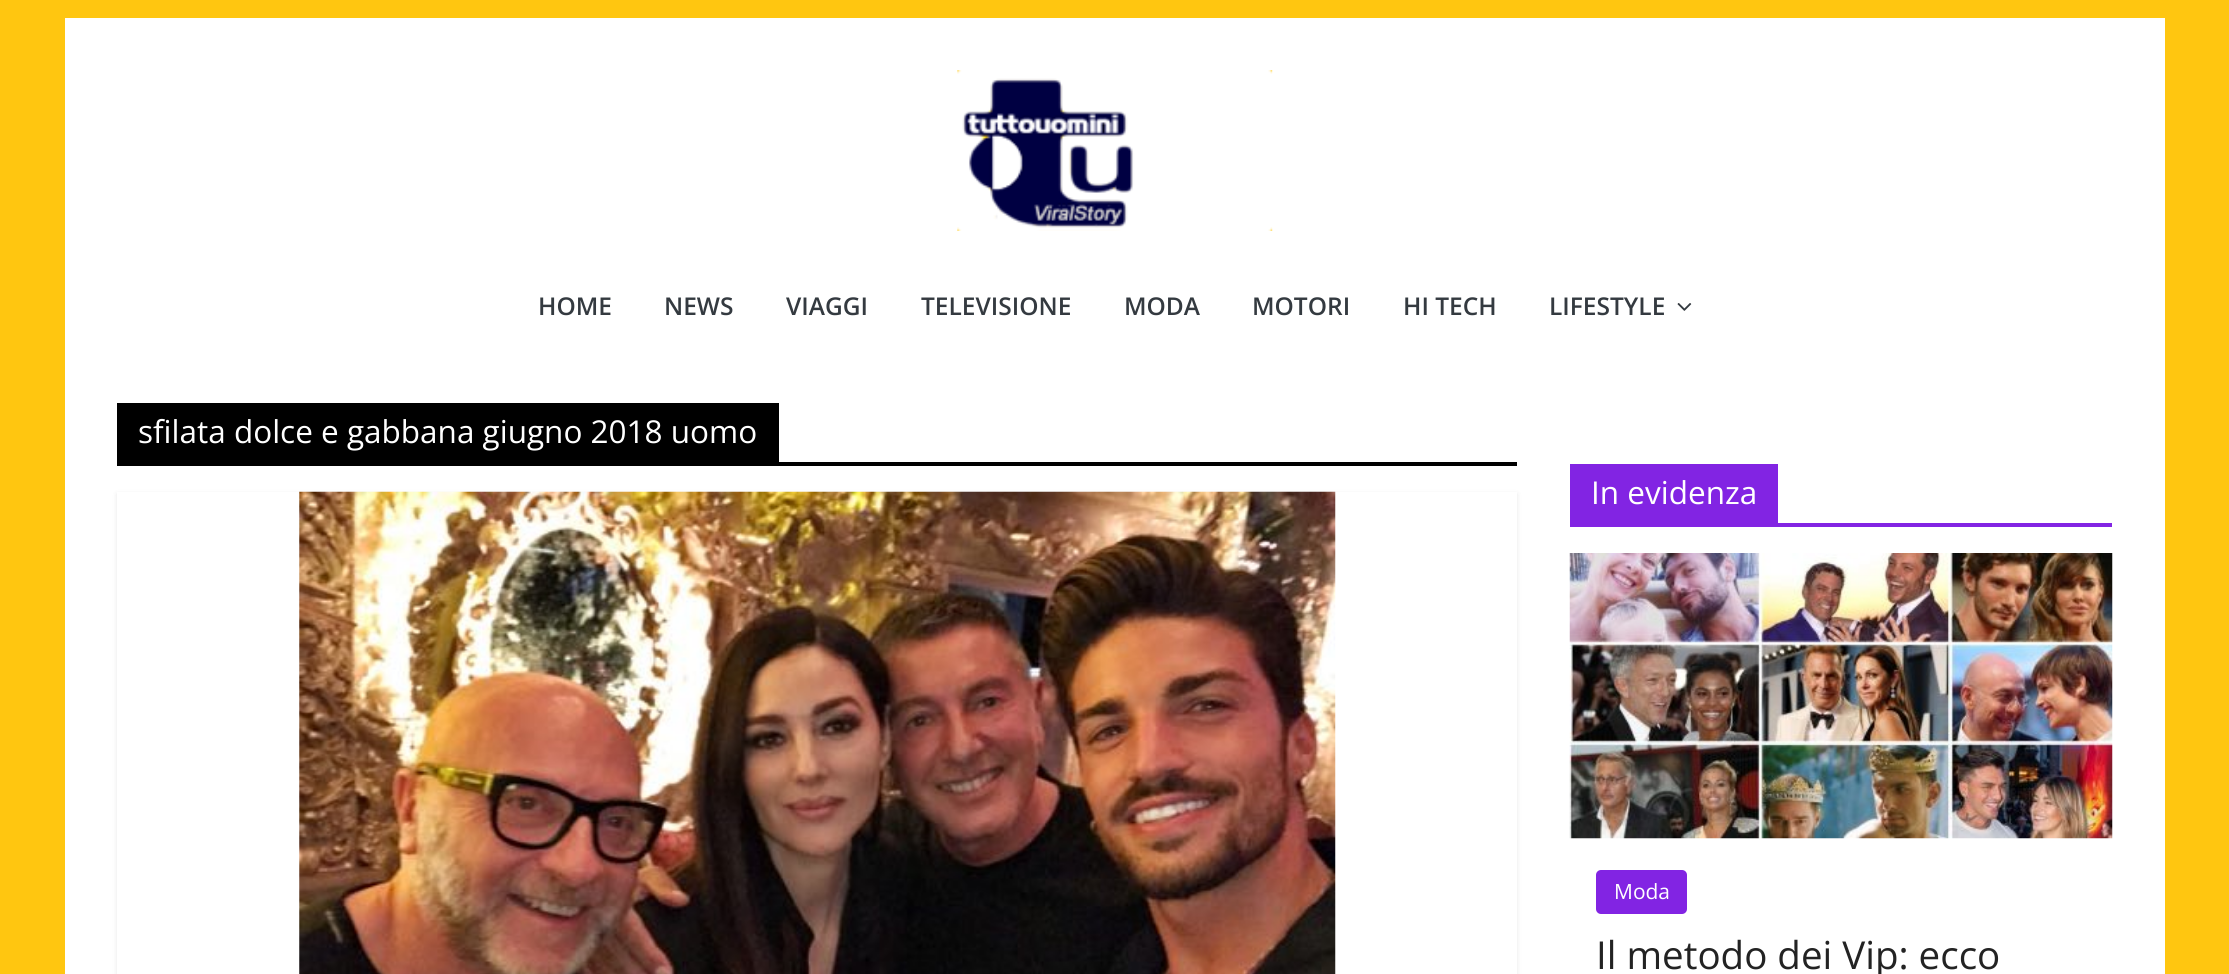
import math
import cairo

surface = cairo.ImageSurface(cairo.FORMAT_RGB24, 2229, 974)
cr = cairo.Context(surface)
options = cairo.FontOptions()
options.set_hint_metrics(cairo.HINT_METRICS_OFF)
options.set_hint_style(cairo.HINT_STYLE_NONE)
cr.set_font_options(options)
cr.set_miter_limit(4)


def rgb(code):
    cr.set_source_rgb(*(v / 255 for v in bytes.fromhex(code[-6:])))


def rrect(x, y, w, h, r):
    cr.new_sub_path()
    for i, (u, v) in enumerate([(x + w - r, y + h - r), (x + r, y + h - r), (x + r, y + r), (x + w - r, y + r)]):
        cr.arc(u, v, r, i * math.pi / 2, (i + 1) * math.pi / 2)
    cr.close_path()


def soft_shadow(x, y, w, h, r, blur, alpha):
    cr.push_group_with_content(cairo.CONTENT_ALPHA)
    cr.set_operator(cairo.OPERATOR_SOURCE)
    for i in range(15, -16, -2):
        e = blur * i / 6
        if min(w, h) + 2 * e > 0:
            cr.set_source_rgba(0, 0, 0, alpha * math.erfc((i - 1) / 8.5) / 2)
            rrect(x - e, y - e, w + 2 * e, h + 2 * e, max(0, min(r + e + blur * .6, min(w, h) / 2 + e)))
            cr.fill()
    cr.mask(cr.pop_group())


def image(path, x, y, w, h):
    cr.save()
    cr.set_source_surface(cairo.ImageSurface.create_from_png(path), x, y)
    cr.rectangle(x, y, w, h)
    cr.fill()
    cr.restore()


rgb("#ffc610")
cr.paint()
rgb("#ffffff")
cr.rectangle(65, 18, 2100, 956)
cr.fill()
image("img/1.png", 957, 70, 316, 161)
image("img/2.png", 1677, 303, 15, 8)
rgb("#000000")
cr.rectangle(117, 462, 1400, 4)
cr.fill()
cr.rectangle(117, 403, 662, 59)
cr.fill()
cr.save()
cr.set_fill_rule(cairo.FILL_RULE_EVEN_ODD)
cr.new_path()
cr.move_to(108, 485)
cr.line_to(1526, 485)
cr.line_to(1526, 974)
cr.line_to(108, 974)
cr.close_path()
cr.move_to(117, 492)
cr.line_to(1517, 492)
cr.line_to(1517, 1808)
cr.line_to(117, 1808)
cr.close_path()
cr.clip()
rgb("#000000")
soft_shadow(117, 494, 1400, 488, 0, 2.5, 0.1)
cr.restore()
image("img/3.png", 299, 491, 1037, 483)
rgb("#8224e3")
cr.rectangle(1570, 523, 542, 4)
cr.fill()
cr.rectangle(1570, 464, 208, 59)
cr.fill()
image("img/4.png", 1569, 553, 544, 286)
rrect(1596, 870, 91, 44, 5)
cr.fill()
cr.select_font_face("Open Sans SemiBold")
cr.set_font_size(24.5)
rgb("#343a40")
for x, y, s in [
    (538, 315, "HOME"),
    (664, 315, "NEWS"),
    (786, 315, "VIAGGI"),
    (921, 315, "TELEVISIONE"),
    (1124, 315, "MODA"),
    (1252, 315, "MOTORI"),
    (1403, 315, "HI TECH"),
    (1549, 315, "LIFESTYLE"),
]:
    cr.move_to(x, y)
    cr.show_text(s)
cr.select_font_face("Open Sans")
cr.set_font_size(31.5)
rgb("#ffffff")
cr.move_to(138, 443)
cr.show_text("sfilata dolce e gabbana giugno 2018 uomo")
cr.move_to(1591, 504)
cr.show_text("In evidenza")
cr.set_font_size(21)
cr.move_to(1614, 899)
cr.show_text("Moda")
cr.set_font_size(38.5)
rgb("#232323")
cr.move_to(1596, 969)
cr.show_text("Il metodo dei Vip: ecco")
surface.write_to_png("page.png")
